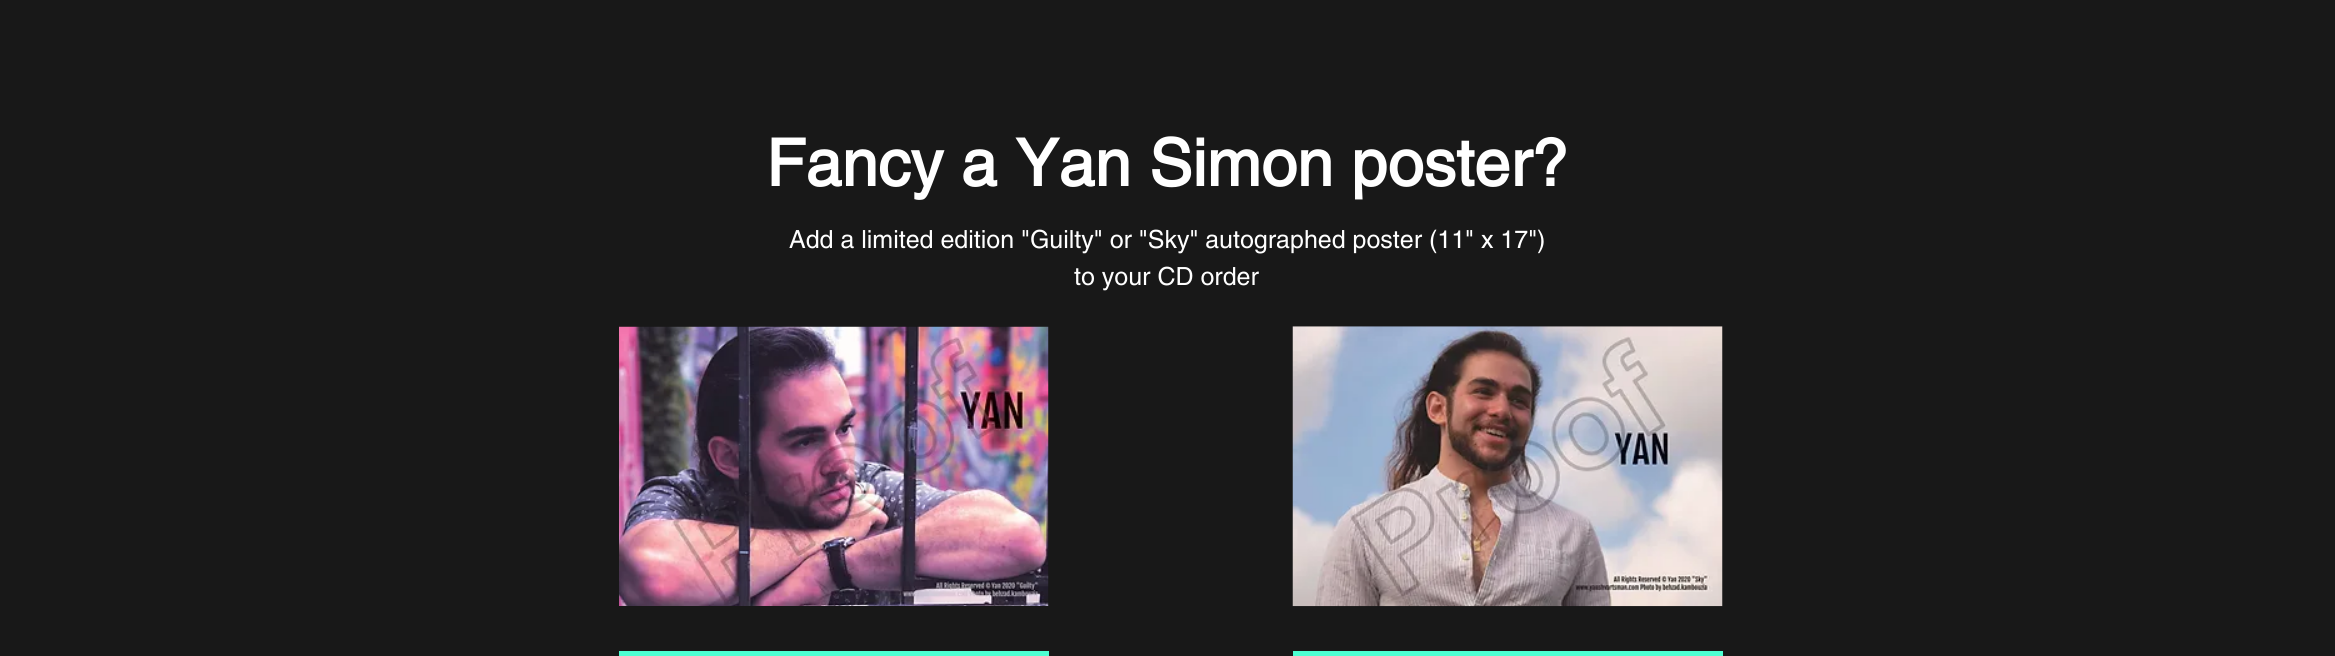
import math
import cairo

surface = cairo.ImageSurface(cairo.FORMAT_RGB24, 2335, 656)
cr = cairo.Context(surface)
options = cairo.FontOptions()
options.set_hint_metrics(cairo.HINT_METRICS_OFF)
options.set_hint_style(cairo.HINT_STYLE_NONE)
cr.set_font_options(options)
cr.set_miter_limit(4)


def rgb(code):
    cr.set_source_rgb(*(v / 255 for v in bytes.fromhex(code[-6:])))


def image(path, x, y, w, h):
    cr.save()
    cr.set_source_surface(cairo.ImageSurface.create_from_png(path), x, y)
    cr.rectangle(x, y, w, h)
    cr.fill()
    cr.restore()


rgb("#181818")
cr.paint()
image("img/1.png", 619, 326, 430, 280)
image("img/2.png", 1292, 326, 431, 281)
rgb("#4dffd2")
cr.rectangle(619, 651, 430, 5)
cr.fill()
cr.rectangle(1293, 651, 430, 5)
cr.fill()
cr.select_font_face("helvetica", cairo.FONT_SLANT_NORMAL, cairo.FONT_WEIGHT_BOLD)
cr.set_font_size(65)
rgb("#ffffff")
cr.move_to(766, 186)
cr.show_text("Fancy a Yan Simon poster?")
cr.select_font_face("helvetica")
cr.set_font_size(25)
cr.move_to(789, 248)
cr.show_text("Add a limited edition \"Guilty\" or \"Sky\" autographed poster (11\" x 17\")")
cr.move_to(1074, 285)
cr.show_text("to your CD order")
surface.write_to_png("page.png")
